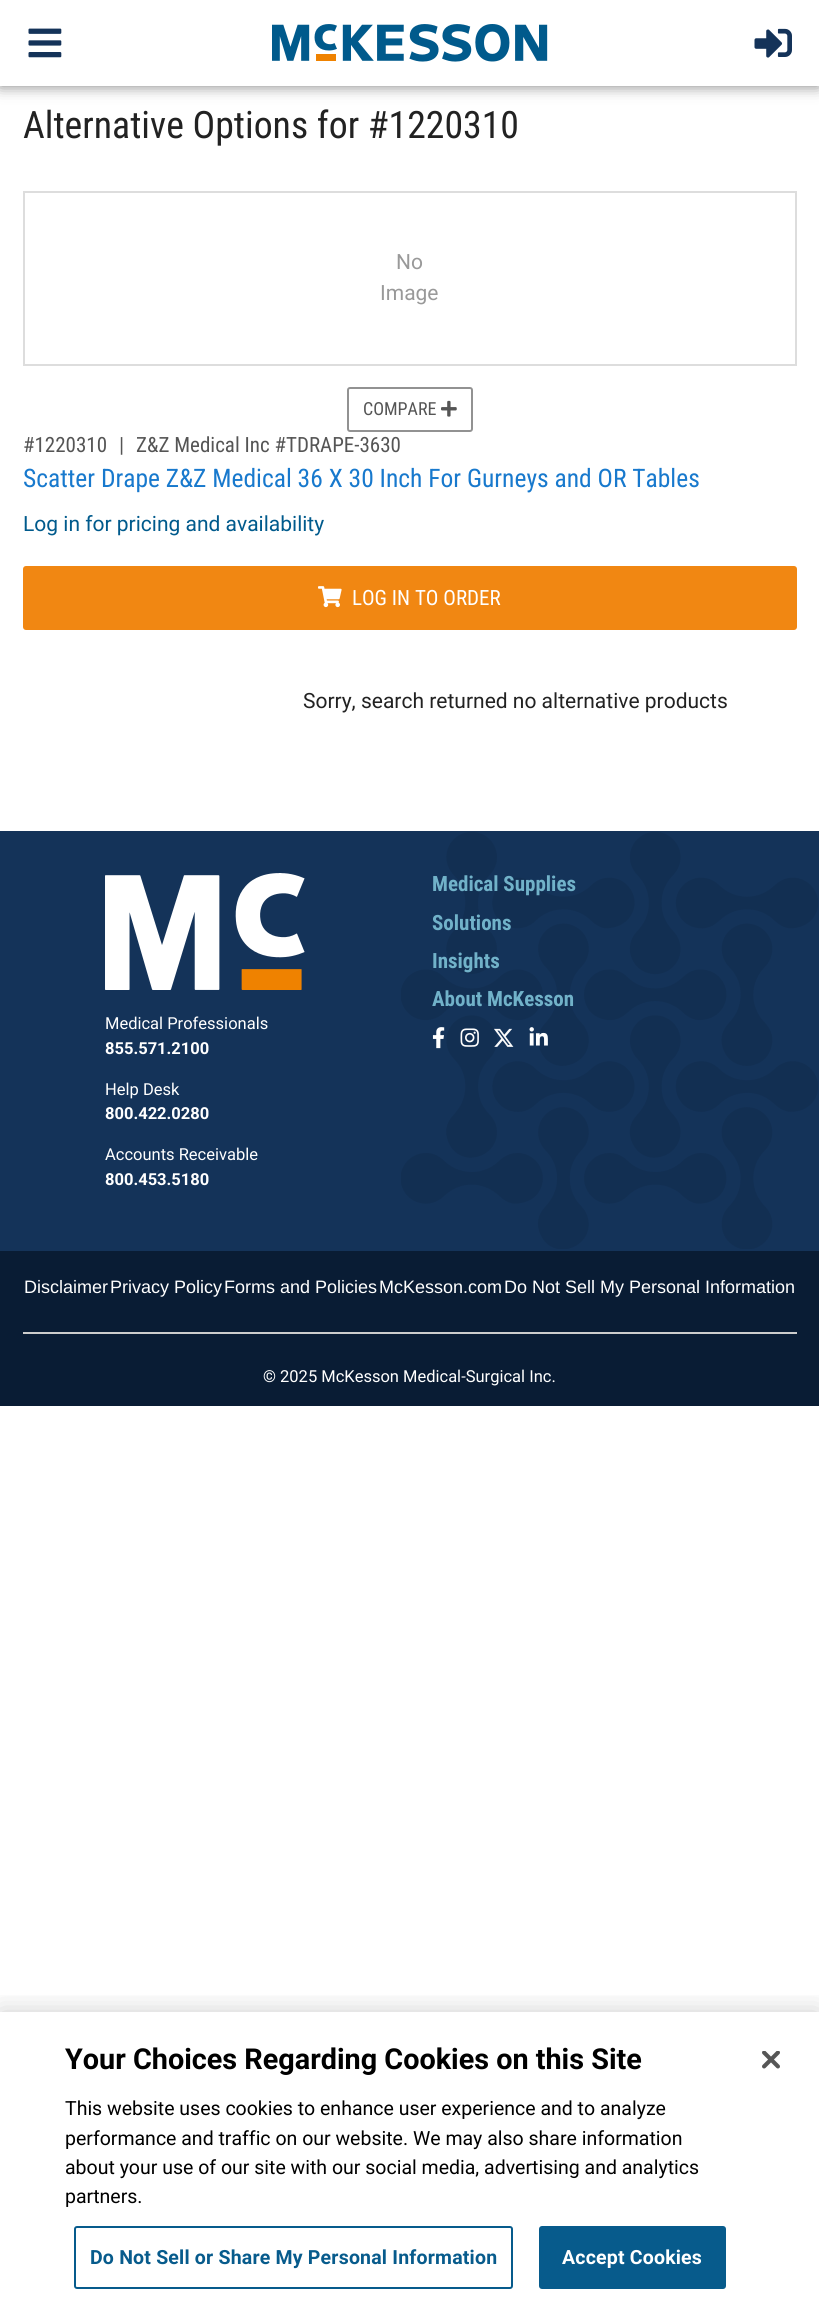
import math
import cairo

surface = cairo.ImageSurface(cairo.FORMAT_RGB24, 819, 2303)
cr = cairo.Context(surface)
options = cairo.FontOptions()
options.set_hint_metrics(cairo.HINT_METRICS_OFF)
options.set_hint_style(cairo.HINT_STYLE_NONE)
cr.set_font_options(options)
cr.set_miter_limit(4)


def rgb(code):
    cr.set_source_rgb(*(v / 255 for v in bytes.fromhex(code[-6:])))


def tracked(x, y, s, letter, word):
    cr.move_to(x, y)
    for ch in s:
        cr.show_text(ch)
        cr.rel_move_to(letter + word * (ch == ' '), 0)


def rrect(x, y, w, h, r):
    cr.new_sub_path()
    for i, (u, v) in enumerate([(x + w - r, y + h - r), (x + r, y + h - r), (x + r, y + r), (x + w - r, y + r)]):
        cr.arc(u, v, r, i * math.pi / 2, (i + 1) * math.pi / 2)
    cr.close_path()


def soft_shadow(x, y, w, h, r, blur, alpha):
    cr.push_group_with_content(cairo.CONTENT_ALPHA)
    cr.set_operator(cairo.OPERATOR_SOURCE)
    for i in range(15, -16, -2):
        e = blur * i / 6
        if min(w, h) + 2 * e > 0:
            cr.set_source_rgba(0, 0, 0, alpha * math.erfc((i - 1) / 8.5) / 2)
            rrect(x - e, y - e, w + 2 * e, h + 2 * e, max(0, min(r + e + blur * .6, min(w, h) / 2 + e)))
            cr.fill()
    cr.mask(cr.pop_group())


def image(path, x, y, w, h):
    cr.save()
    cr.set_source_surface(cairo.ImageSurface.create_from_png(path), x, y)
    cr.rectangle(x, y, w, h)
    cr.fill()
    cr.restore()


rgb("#ffffff")
cr.paint()
rgb("#000000")
soft_shadow(0, 0, 819, 86, 0, 7.5, 0.5)
rgb("#ffffff")
cr.rectangle(0, 0, 819, 86)
cr.fill()
image("img/1.png", 28, 28, 34, 30)
image("img/2.png", 272, 24, 276, 38)
image("img/3.png", 754, 28, 38, 30)
cr.rectangle(24, 192, 772, 173)
rgb("#dddddd")
cr.stroke()
rrect(348, 388, 124, 43, 2)
rgb("#929292")
cr.stroke()
image("img/4.png", 441, 400, 16, 17)
rgb("#f18712")
rrect(24, 567, 772, 62, 2)
cr.fill_preserve()
cr.stroke()
image("img/5.png", 318, 586, 24, 22)
rgb("#143359")
cr.rectangle(0, 831, 819, 420)
cr.fill()
image("img/11.png", 401, 832, 417, 417)
image("img/6.png", 432, 1027, 13, 22)
image("img/7.png", 460, 1028, 19, 19)
image("img/8.png", 494, 1028, 20, 19)
image("img/9.png", 529, 1027, 19, 19)
image("img/10.png", 105, 873, 200, 117)
rgb("#091c34")
cr.rectangle(0, 1251, 819, 155)
cr.fill()
rgb("#cccccc")
cr.rectangle(23, 1332, 774, 2)
cr.fill()
cr.save()
cr.rectangle(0, 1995, 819, 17)
cr.clip()
rgb("#000000")
soft_shadow(0, 2012, 819, 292, 0, 13.5, 0.2)
cr.restore()
rrect(75, 2227, 437, 61, 2)
rgb("#075b8c")
cr.stroke()
rrect(540, 2227, 185, 61, 2)
cr.fill_preserve()
cr.stroke()
image("img/12.png", 762, 2051, 18, 18)
cr.select_font_face("Roboto Condensed")
cr.set_font_size(37.75)
rgb("#222222")
cr.move_to(23, 138)
cr.show_text("Alternative Options for #1220310")
cr.select_font_face("Roboto")
cr.set_font_size(21)
rgb("#999999")
cr.move_to(396, 269)
cr.show_text("No")
cr.move_to(380, 300)
cr.show_text("Image")
cr.select_font_face("Roboto Condensed")
cr.set_font_size(18)
rgb("#555555")
cr.move_to(363, 415)
cr.show_text("COMPARE")
cr.set_font_size(21)
for x, y, s in [
    (23, 452, "#1220310"),
    (119, 452, "|"),
    (136, 452, "Z&Z Medical Inc #TDRAPE-3630"),
]:
    cr.move_to(x, y)
    cr.show_text(s)
cr.set_font_size(25.5)
rgb("#1879cd")
cr.move_to(23, 487)
cr.show_text("Scatter Drape Z&Z Medical 36 X 30 Inch For Gurneys and OR Tables")
cr.select_font_face("Roboto")
cr.set_font_size(21)
rgb("#005a8c")
cr.move_to(23, 531)
cr.show_text("Log in for pricing and availability")
cr.select_font_face("Roboto Condensed")
rgb("#ffffff")
cr.move_to(352, 605)
cr.show_text("LOG IN TO ORDER")
cr.select_font_face("Roboto")
rgb("#222222")
cr.move_to(303, 708)
cr.show_text("Sorry, search returned no alternative products")
cr.select_font_face("Roboto Condensed", cairo.FONT_SLANT_NORMAL, cairo.FONT_WEIGHT_BOLD)
rgb("#71b2c9")
for x, y, s in [
    (432, 891, "Medical Supplies"),
    (432, 930, "Solutions"),
    (432, 968, "Insights"),
    (432, 1006, "About McKesson"),
]:
    cr.move_to(x, y)
    cr.show_text(s)
cr.select_font_face("Roboto")
cr.set_font_size(16.5)
rgb("#ffffff")
cr.move_to(105, 1029)
cr.show_text("Medical Professionals")
cr.select_font_face("Roboto", cairo.FONT_SLANT_NORMAL, cairo.FONT_WEIGHT_BOLD)
cr.move_to(105, 1054)
cr.show_text("855.571.2100")
cr.select_font_face("Roboto")
cr.move_to(105, 1095)
cr.show_text("Help Desk")
cr.select_font_face("Roboto", cairo.FONT_SLANT_NORMAL, cairo.FONT_WEIGHT_BOLD)
cr.move_to(105, 1119)
cr.show_text("800.422.0280")
cr.select_font_face("Roboto")
cr.move_to(105, 1160)
cr.show_text("Accounts Receivable")
cr.select_font_face("Roboto", cairo.FONT_SLANT_NORMAL, cairo.FONT_WEIGHT_BOLD)
cr.move_to(105, 1185)
cr.show_text("800.453.5180")
cr.select_font_face("Liberation Sans")
cr.set_font_size(18)
for x, y, s in [
    (24, 1293, "Disclaimer"),
    (110, 1293, "Privacy Policy"),
    (224, 1293, "Forms and Policies"),
    (379, 1293, "McKesson.com"),
    (504, 1293, "Do Not Sell My Personal Information"),
]:
    cr.move_to(x, y)
    cr.show_text(s)
cr.select_font_face("Roboto")
cr.set_font_size(16.5)
cr.move_to(263, 1382)
cr.show_text("© 2025 McKesson Medical-Surgical Inc.")
cr.select_font_face("Roboto", cairo.FONT_SLANT_NORMAL, cairo.FONT_WEIGHT_BOLD)
cr.set_font_size(28.8)
rgb("#000000")
cr.move_to(65, 2069)
cr.show_text("Your Choices Regarding Cookies on this Site")
cr.select_font_face("Roboto")
cr.set_font_size(19.5)
for x, y, s in [
    (65, 2115, "This website uses cookies to enhance user experience and to analyze"),
    (65, 2145, "performance and traffic on our website. We may also share information"),
    (65, 2174, "about your use of our site with our social media, advertising and analytics"),
    (65, 2203, "partners."),
]:
    cr.move_to(x, y)
    cr.show_text(s)
cr.select_font_face("Roboto", cairo.FONT_SLANT_NORMAL, cairo.FONT_WEIGHT_BOLD)
rgb("#075b8c")
tracked(90, 2264, "Do Not Sell or Share My Personal Information", 0.2, 0)
rgb("#ffffff")
tracked(562, 2264, "Accept Cookies", 0.2, 0)
surface.write_to_png("page.png")
